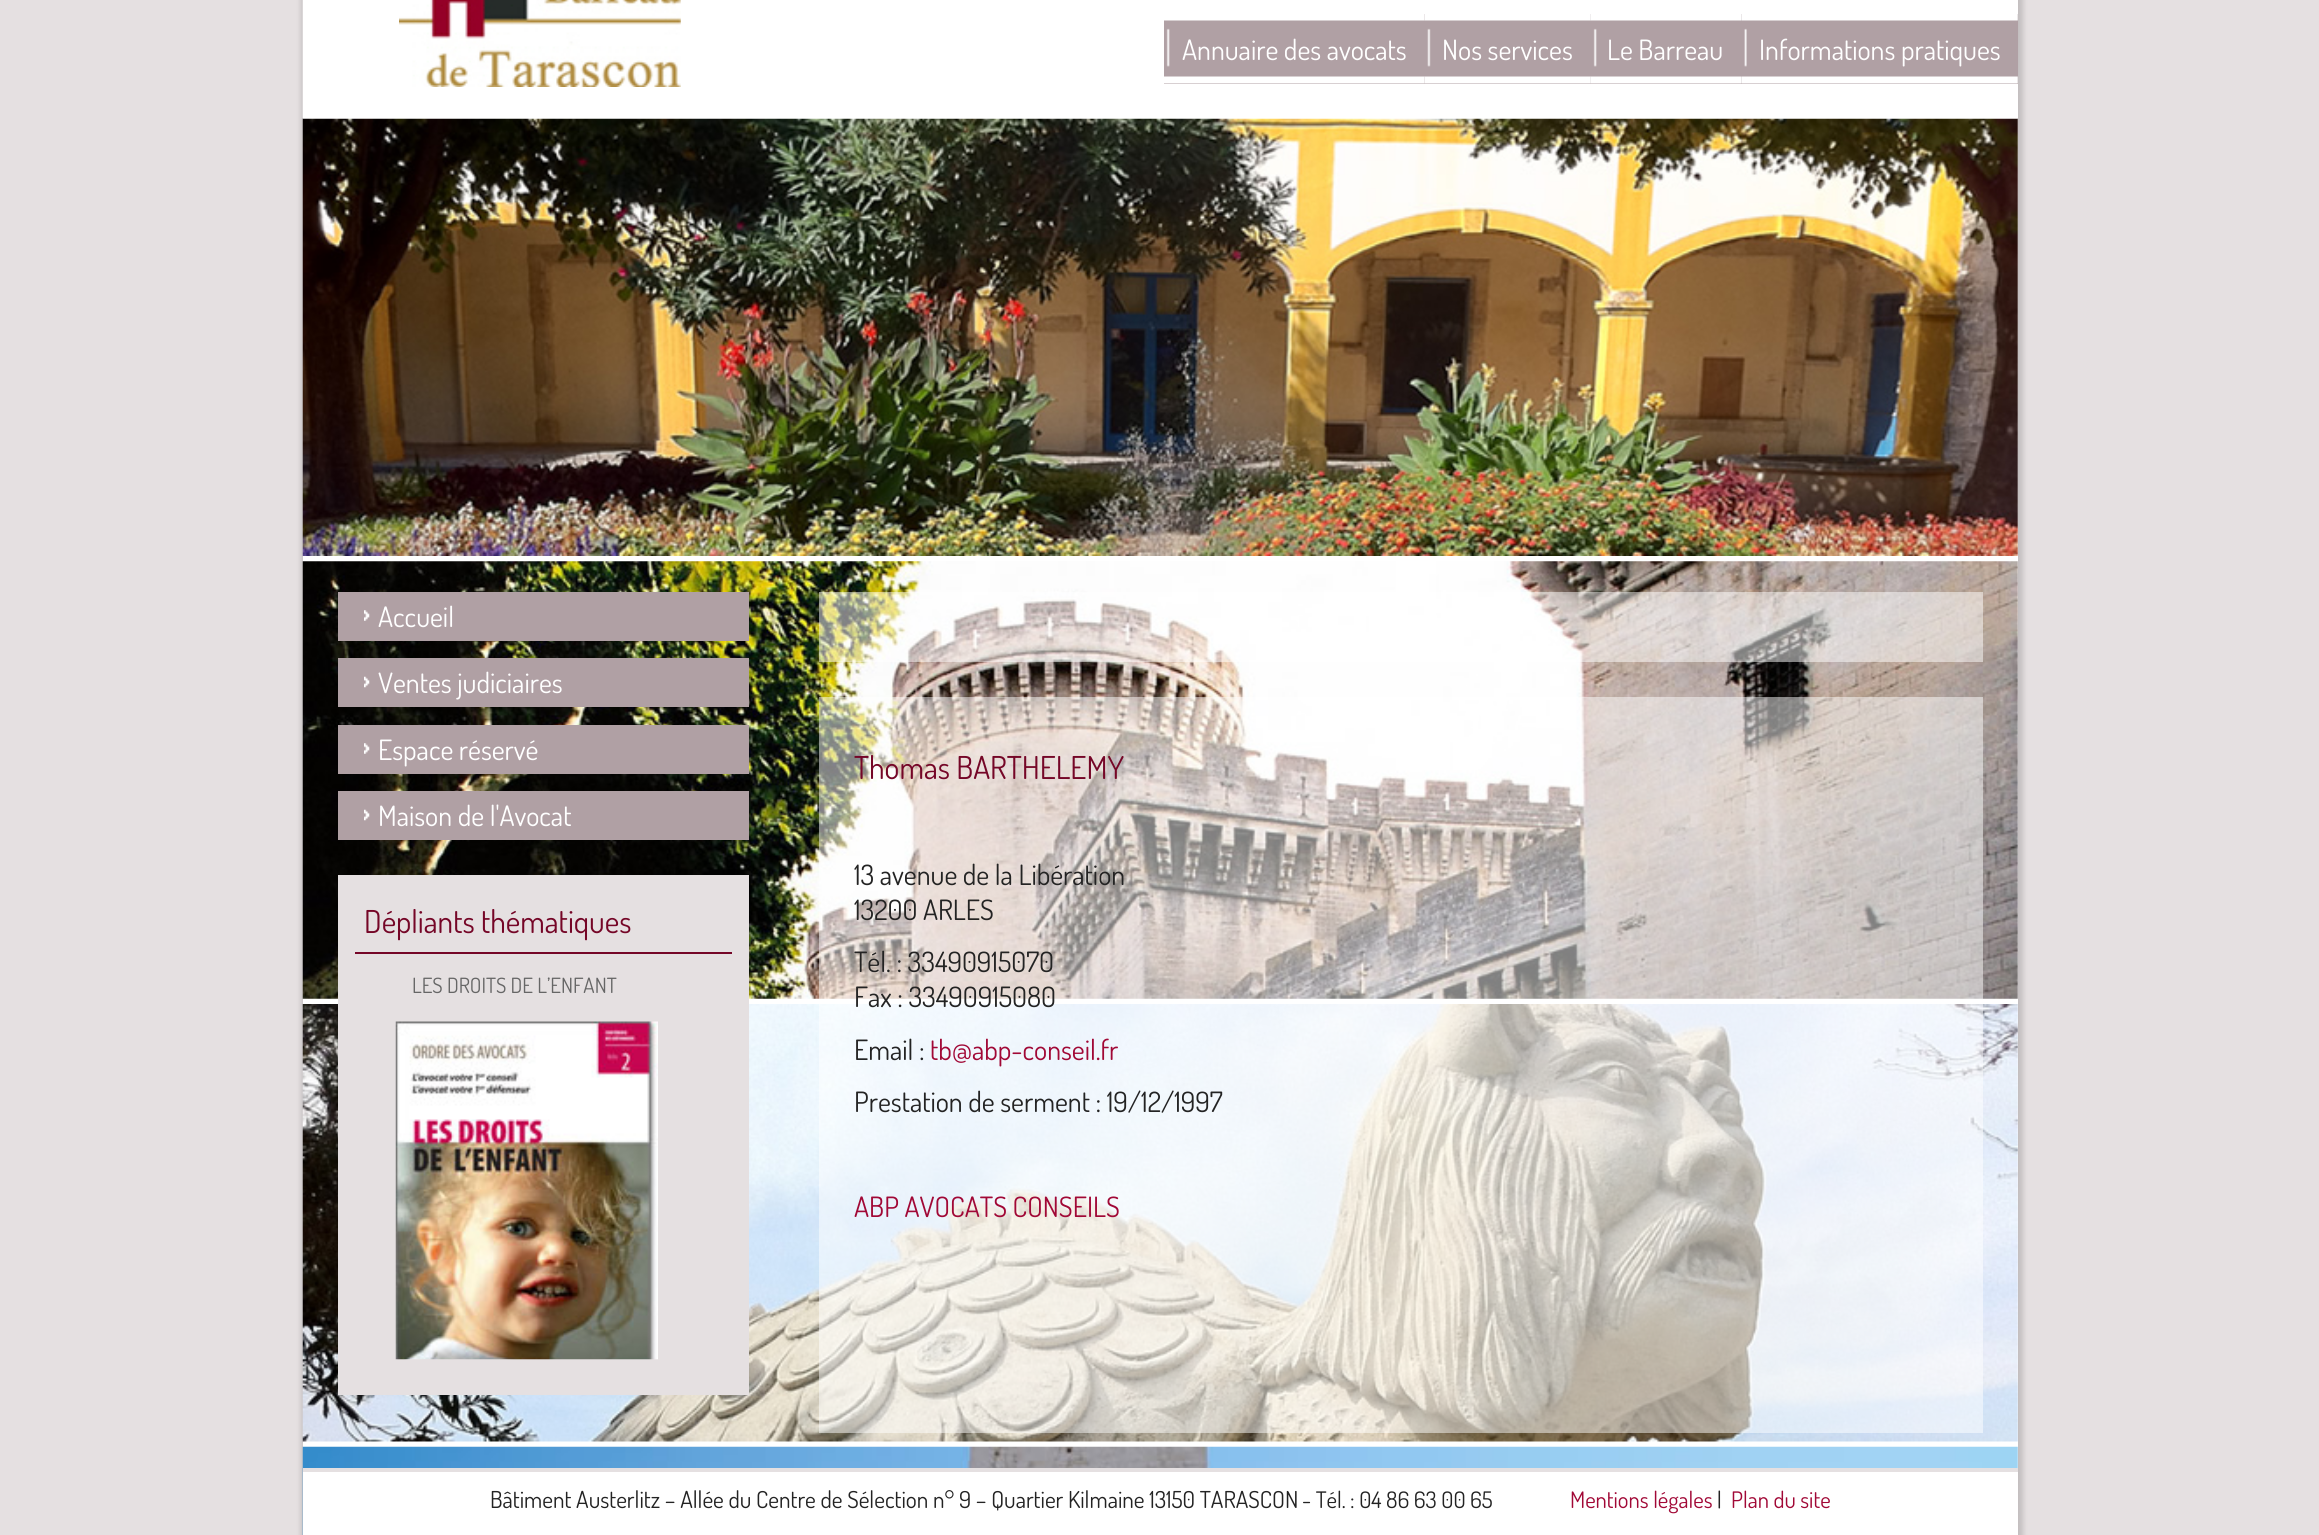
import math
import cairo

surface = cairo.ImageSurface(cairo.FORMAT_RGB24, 2319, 1535)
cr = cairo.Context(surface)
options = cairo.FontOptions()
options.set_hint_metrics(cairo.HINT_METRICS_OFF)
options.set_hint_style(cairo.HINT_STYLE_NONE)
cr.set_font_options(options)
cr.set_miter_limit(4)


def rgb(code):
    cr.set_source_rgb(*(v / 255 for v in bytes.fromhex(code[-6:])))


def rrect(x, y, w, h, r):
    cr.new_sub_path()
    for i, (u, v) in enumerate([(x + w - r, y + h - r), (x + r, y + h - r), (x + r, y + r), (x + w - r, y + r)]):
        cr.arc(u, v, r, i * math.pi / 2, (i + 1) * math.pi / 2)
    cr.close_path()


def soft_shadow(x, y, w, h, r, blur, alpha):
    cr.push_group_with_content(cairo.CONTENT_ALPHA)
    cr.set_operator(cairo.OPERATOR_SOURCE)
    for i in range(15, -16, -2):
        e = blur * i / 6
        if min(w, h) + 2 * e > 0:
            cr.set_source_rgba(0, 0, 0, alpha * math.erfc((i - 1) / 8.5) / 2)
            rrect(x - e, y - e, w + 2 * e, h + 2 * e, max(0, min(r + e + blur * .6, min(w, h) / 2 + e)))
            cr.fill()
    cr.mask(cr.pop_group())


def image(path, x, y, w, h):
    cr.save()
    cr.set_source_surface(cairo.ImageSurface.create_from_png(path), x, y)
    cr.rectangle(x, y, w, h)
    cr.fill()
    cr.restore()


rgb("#e5e0e1")
cr.paint()
rgb("#000000")
soft_shadow(301, -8, 1722, 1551, 0, 2.5, 0.15)
rgb("#ffffff")
cr.rectangle(303, 0, 1715, 1468)
cr.fill()
image("img/6.png", 302, 118, 1716, 438)
image("img/1.png", 302, 0, 1716, 119)
rgb("#b0a0a4")
cr.rectangle(1164, 14, 427, 70)
cr.fill()
image("img/2.png", 1164, 14, 261, 70)
image("img/3.png", 1424, 14, 167, 70)
cr.rectangle(1591, 20, 150, 64)
cr.fill()
image("img/4.png", 1590, 14, 151, 70)
cr.rectangle(1741, 14, 277, 70)
cr.fill()
image("img/5.png", 1741, 14, 277, 70)
image("img/7.png", 302, 561, 1716, 438)
image("img/8.png", 302, 1004, 1716, 438)
image("img/9.png", 302, 1446, 1716, 89)
cr.rectangle(338, 592, 411, 49)
cr.fill()
image("img/10.png", 364, 610, 6, 11)
cr.rectangle(338, 658, 411, 49)
cr.fill()
image("img/11.png", 364, 676, 6, 12)
cr.rectangle(338, 725, 411, 49)
cr.fill()
image("img/10.png", 364, 743, 6, 11)
cr.rectangle(338, 791, 411, 49)
cr.fill()
image("img/11.png", 364, 809, 6, 12)
rgb("#e5e0e1")
cr.rectangle(338, 875, 411, 520)
cr.fill()
rgb("#750627")
cr.rectangle(355, 952, 377, 2)
cr.fill()
image("img/12.png", 395, 1021, 263, 339)
cr.set_source_rgba(1, 1, 1, 0.5)
cr.rectangle(819, 592, 1164, 70)
cr.fill()
cr.rectangle(819, 697, 1164, 736)
cr.fill()
rgb("#ffffff")
cr.rectangle(303, 1472, 1715, 63)
cr.fill()
rgb("#e5e0e1")
cr.rectangle(303, 1468, 1715, 4)
cr.fill()
cr.select_font_face("Dosis")
cr.set_font_size(28)
rgb("#ffffff")
for x, y, s in [
    (1182, 60, "Annuaire des avocats"),
    (1442, 60, "Nos services"),
    (1607, 60, "Le Barreau"),
    (1759, 60, "Informations pratiques"),
    (378, 627, "Accueil"),
    (378, 693, "Ventes judiciaires"),
    (378, 760, "Espace réservé"),
    (378, 826, "Maison de l'Avocat"),
]:
    cr.move_to(x, y)
    cr.show_text(s)
cr.set_font_size(31.5)
rgb("#750627")
cr.move_to(364, 933)
cr.show_text("Dépliants thématiques")
cr.set_font_size(21)
rgb("#666666")
cr.move_to(412, 993)
cr.show_text("LES DROITS DE L’ENFANT")
cr.set_font_size(31.5)
rgb("#750627")
cr.move_to(854, 779)
cr.show_text("Thomas BARTHELEMY")
cr.set_font_size(28)
rgb("#232323")
for x, y, s in [
    (854, 885, "13 avenue de la Libération"),
    (854, 920, "13200 ARLES"),
    (854, 972, "Tél. : 33490915070"),
    (854, 1007, "Fax : 33490915080"),
    (854, 1060, "Email :"),
]:
    cr.move_to(x, y)
    cr.show_text(s)
rgb("#a10836")
cr.move_to(930, 1060)
cr.show_text("tb@abp-conseil.fr")
rgb("#232323")
cr.move_to(854, 1112)
cr.show_text("Prestation de serment : 19/12/1997")
rgb("#a10836")
cr.move_to(854, 1217)
cr.show_text("ABP AVOCATS CONSEILS")
cr.set_font_size(23.35)
rgb("#232323")
cr.move_to(490, 1508)
cr.show_text("Bâtiment Austerlitz – Allée du Centre de Sélection n° 9 – Quartier Kilmaine 13150 TARASCON")
cr.set_font_size(22.75)
cr.move_to(1302, 1508)
cr.show_text("- Tél. : 04 86 63 00 65")
rgb("#a10836")
cr.move_to(1570, 1508)
cr.show_text("Mentions légales")
rgb("#232323")
cr.move_to(1717, 1508)
cr.show_text("|")
rgb("#a10836")
cr.move_to(1731, 1508)
cr.show_text("Plan du site")
surface.write_to_png("page.png")
